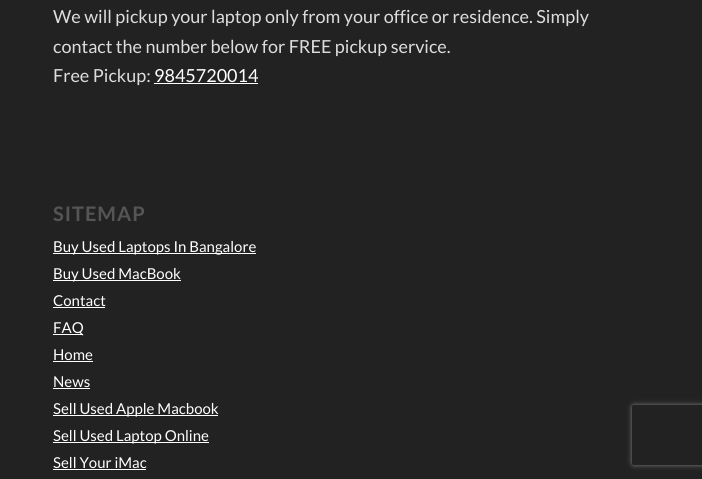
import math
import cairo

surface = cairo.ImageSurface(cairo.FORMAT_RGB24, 702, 479)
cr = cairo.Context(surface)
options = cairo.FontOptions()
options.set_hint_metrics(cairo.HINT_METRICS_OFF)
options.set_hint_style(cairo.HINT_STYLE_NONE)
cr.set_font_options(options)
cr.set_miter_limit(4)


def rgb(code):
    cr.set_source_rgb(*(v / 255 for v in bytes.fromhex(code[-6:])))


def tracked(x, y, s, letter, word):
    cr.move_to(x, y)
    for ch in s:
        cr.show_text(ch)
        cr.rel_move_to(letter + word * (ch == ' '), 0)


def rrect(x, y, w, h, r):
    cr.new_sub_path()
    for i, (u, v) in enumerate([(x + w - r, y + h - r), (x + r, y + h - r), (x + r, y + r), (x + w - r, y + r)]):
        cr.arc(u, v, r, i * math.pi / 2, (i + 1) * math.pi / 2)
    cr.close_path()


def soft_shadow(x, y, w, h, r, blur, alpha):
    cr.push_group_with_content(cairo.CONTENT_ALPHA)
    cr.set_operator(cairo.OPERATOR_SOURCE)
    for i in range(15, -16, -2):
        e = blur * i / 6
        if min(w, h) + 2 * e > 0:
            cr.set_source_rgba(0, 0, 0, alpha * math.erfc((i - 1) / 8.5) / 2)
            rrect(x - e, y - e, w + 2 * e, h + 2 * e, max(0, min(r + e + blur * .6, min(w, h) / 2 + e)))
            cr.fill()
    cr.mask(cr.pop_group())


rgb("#222222")
cr.paint()
for x, y, w, h, color in [
    (154, 83, 104, 1, "#ffffff"),
    (53, 253, 203, 1, "#ffffff"),
    (53, 280, 128, 1, "#ffffff"),
    (53, 307, 52, 1, "#ffffff"),
    (53, 334, 30, 1, "#ffffff"),
    (53, 361, 40, 1, "#ffffff"),
    (53, 388, 37, 1, "#ffffff"),
    (53, 415, 165, 1, "#ffffff"),
    (53, 442, 156, 1, "#ffffff"),
    (53, 469, 93, 1, "#ffffff"),
]:
    rgb(color)
    cr.rectangle(x, y, w, h)
    cr.fill()
cr.save()
cr.set_fill_rule(cairo.FILL_RULE_EVEN_ODD)
cr.new_path()
cr.move_to(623, 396)
cr.line_to(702, 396)
cr.line_to(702, 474)
cr.line_to(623, 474)
cr.close_path()
cr.move_to(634, 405)
cr.line_to(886, 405)
cr.curve_to(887, 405, 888, 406, 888, 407)
cr.line_to(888, 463)
cr.curve_to(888, 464, 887, 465, 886, 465)
cr.line_to(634, 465)
cr.curve_to(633, 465, 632, 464, 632, 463)
cr.line_to(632, 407)
cr.curve_to(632, 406, 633, 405, 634, 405)
cr.close_path()
cr.clip()
rgb("#808080")
soft_shadow(632, 405, 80, 60, 2, 2.5, 1)
cr.restore()
cr.select_font_face("Lato")
cr.set_font_size(18)
rgb("#dddddd")
for x, y, s in [
    (53, 23, "We will pickup your laptop only from your office or residence. Simply"),
    (53, 53, "contact the number below for FREE pickup service."),
    (53, 82, "Free Pickup:"),
]:
    cr.move_to(x, y)
    cr.show_text(s)
rgb("#ffffff")
cr.move_to(154, 82)
cr.show_text("9845720014")
cr.select_font_face("Lato", cairo.FONT_SLANT_NORMAL, cairo.FONT_WEIGHT_BOLD)
cr.set_font_size(20)
rgb("#555555")
tracked(53, 221, "SITEMAP", 1, 0)
cr.select_font_face("Lato")
cr.set_font_size(15)
rgb("#ffffff")
for x, y, s in [
    (53, 252, "Buy Used Laptops In Bangalore"),
    (53, 279, "Buy Used MacBook"),
    (53, 306, "Contact"),
    (53, 333, "FAQ"),
    (53, 360, "Home"),
    (53, 387, "News"),
    (53, 414, "Sell Used Apple Macbook"),
    (53, 441, "Sell Used Laptop Online"),
    (53, 468, "Sell Your iMac"),
]:
    cr.move_to(x, y)
    cr.show_text(s)
surface.write_to_png("page.png")
